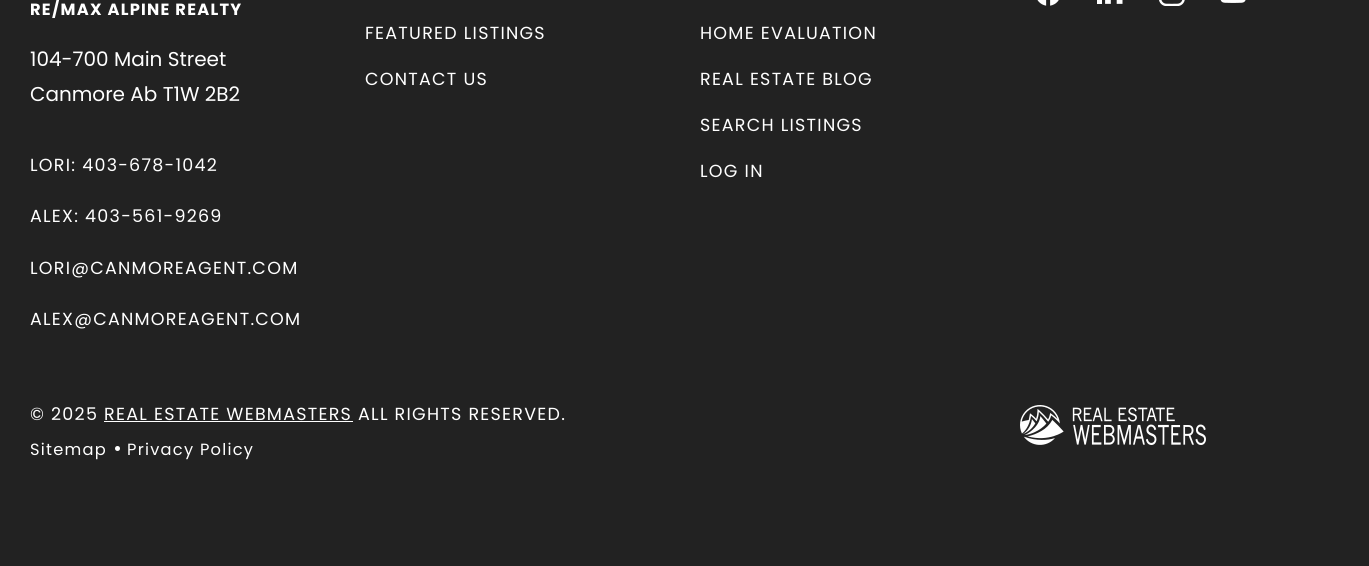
import math
import cairo

surface = cairo.ImageSurface(cairo.FORMAT_RGB24, 1369, 566)
cr = cairo.Context(surface)
options = cairo.FontOptions()
options.set_hint_metrics(cairo.HINT_METRICS_OFF)
options.set_hint_style(cairo.HINT_STYLE_NONE)
cr.set_font_options(options)
cr.set_miter_limit(4)


def rgb(code):
    cr.set_source_rgb(*(v / 255 for v in bytes.fromhex(code[-6:])))


def tracked(x, y, s, letter, word):
    cr.move_to(x, y)
    for ch in s:
        cr.show_text(ch)
        cr.rel_move_to(letter + word * (ch == ' '), 0)


def image(path, x, y, w, h):
    cr.save()
    cr.set_source_surface(cairo.ImageSurface.create_from_png(path), x, y)
    cr.rectangle(x, y, w, h)
    cr.fill()
    cr.restore()


rgb("#222222")
cr.paint()
image("img/1.png", 1037, 0, 22, 6)
image("img/2.png", 1097, 0, 26, 4)
image("img/3.png", 1159, 0, 26, 6)
image("img/4.png", 1220, 0, 26, 3)
rgb("#ffffff")
cr.rectangle(104, 421, 249, 1)
cr.fill()
cr.arc(117.5, 448.5, 2.5, 0, 2 * math.pi)
cr.fill()
image("img/5.png", 1020, 405, 186, 40)
cr.select_font_face("Poppins", cairo.FONT_SLANT_NORMAL, cairo.FONT_WEIGHT_BOLD)
cr.set_font_size(16.25)
tracked(30, 15, "RE/MAX ALPINE REALTY", 1.25, 0)
cr.select_font_face("Poppins")
cr.set_font_size(20)
cr.move_to(30, 66)
cr.show_text("104-700 Main Street")
cr.move_to(30, 101)
cr.show_text("Canmore Ab T1W 2B2")
cr.set_font_size(17.5)
for x, y, s in [
    (30, 171, "LORI: 403-678-1042"),
    (30, 222, "ALEX: 403-561-9269"),
    (30, 274, "LORI@CANMOREAGENT.COM"),
    (30, 325, "ALEX@CANMOREAGENT.COM"),
    (365, 39, "FEATURED LISTINGS"),
    (365, 85, "CONTACT US"),
    (700, 39, "HOME EVALUATION"),
    (700, 85, "REAL ESTATE BLOG"),
    (700, 131, "SEARCH LISTINGS"),
    (700, 177, "LOG IN"),
    (30, 420, "© 2025 REAL ESTATE WEBMASTERS ALL RIGHTS RESERVED."),
]:
    tracked(x, y, s, 1.25, 0)
cr.set_font_size(16.25)
tracked(30, 455, "Sitemap", 1.25, 0)
tracked(127, 455, "Privacy Policy", 1.25, 0)
surface.write_to_png("page.png")
